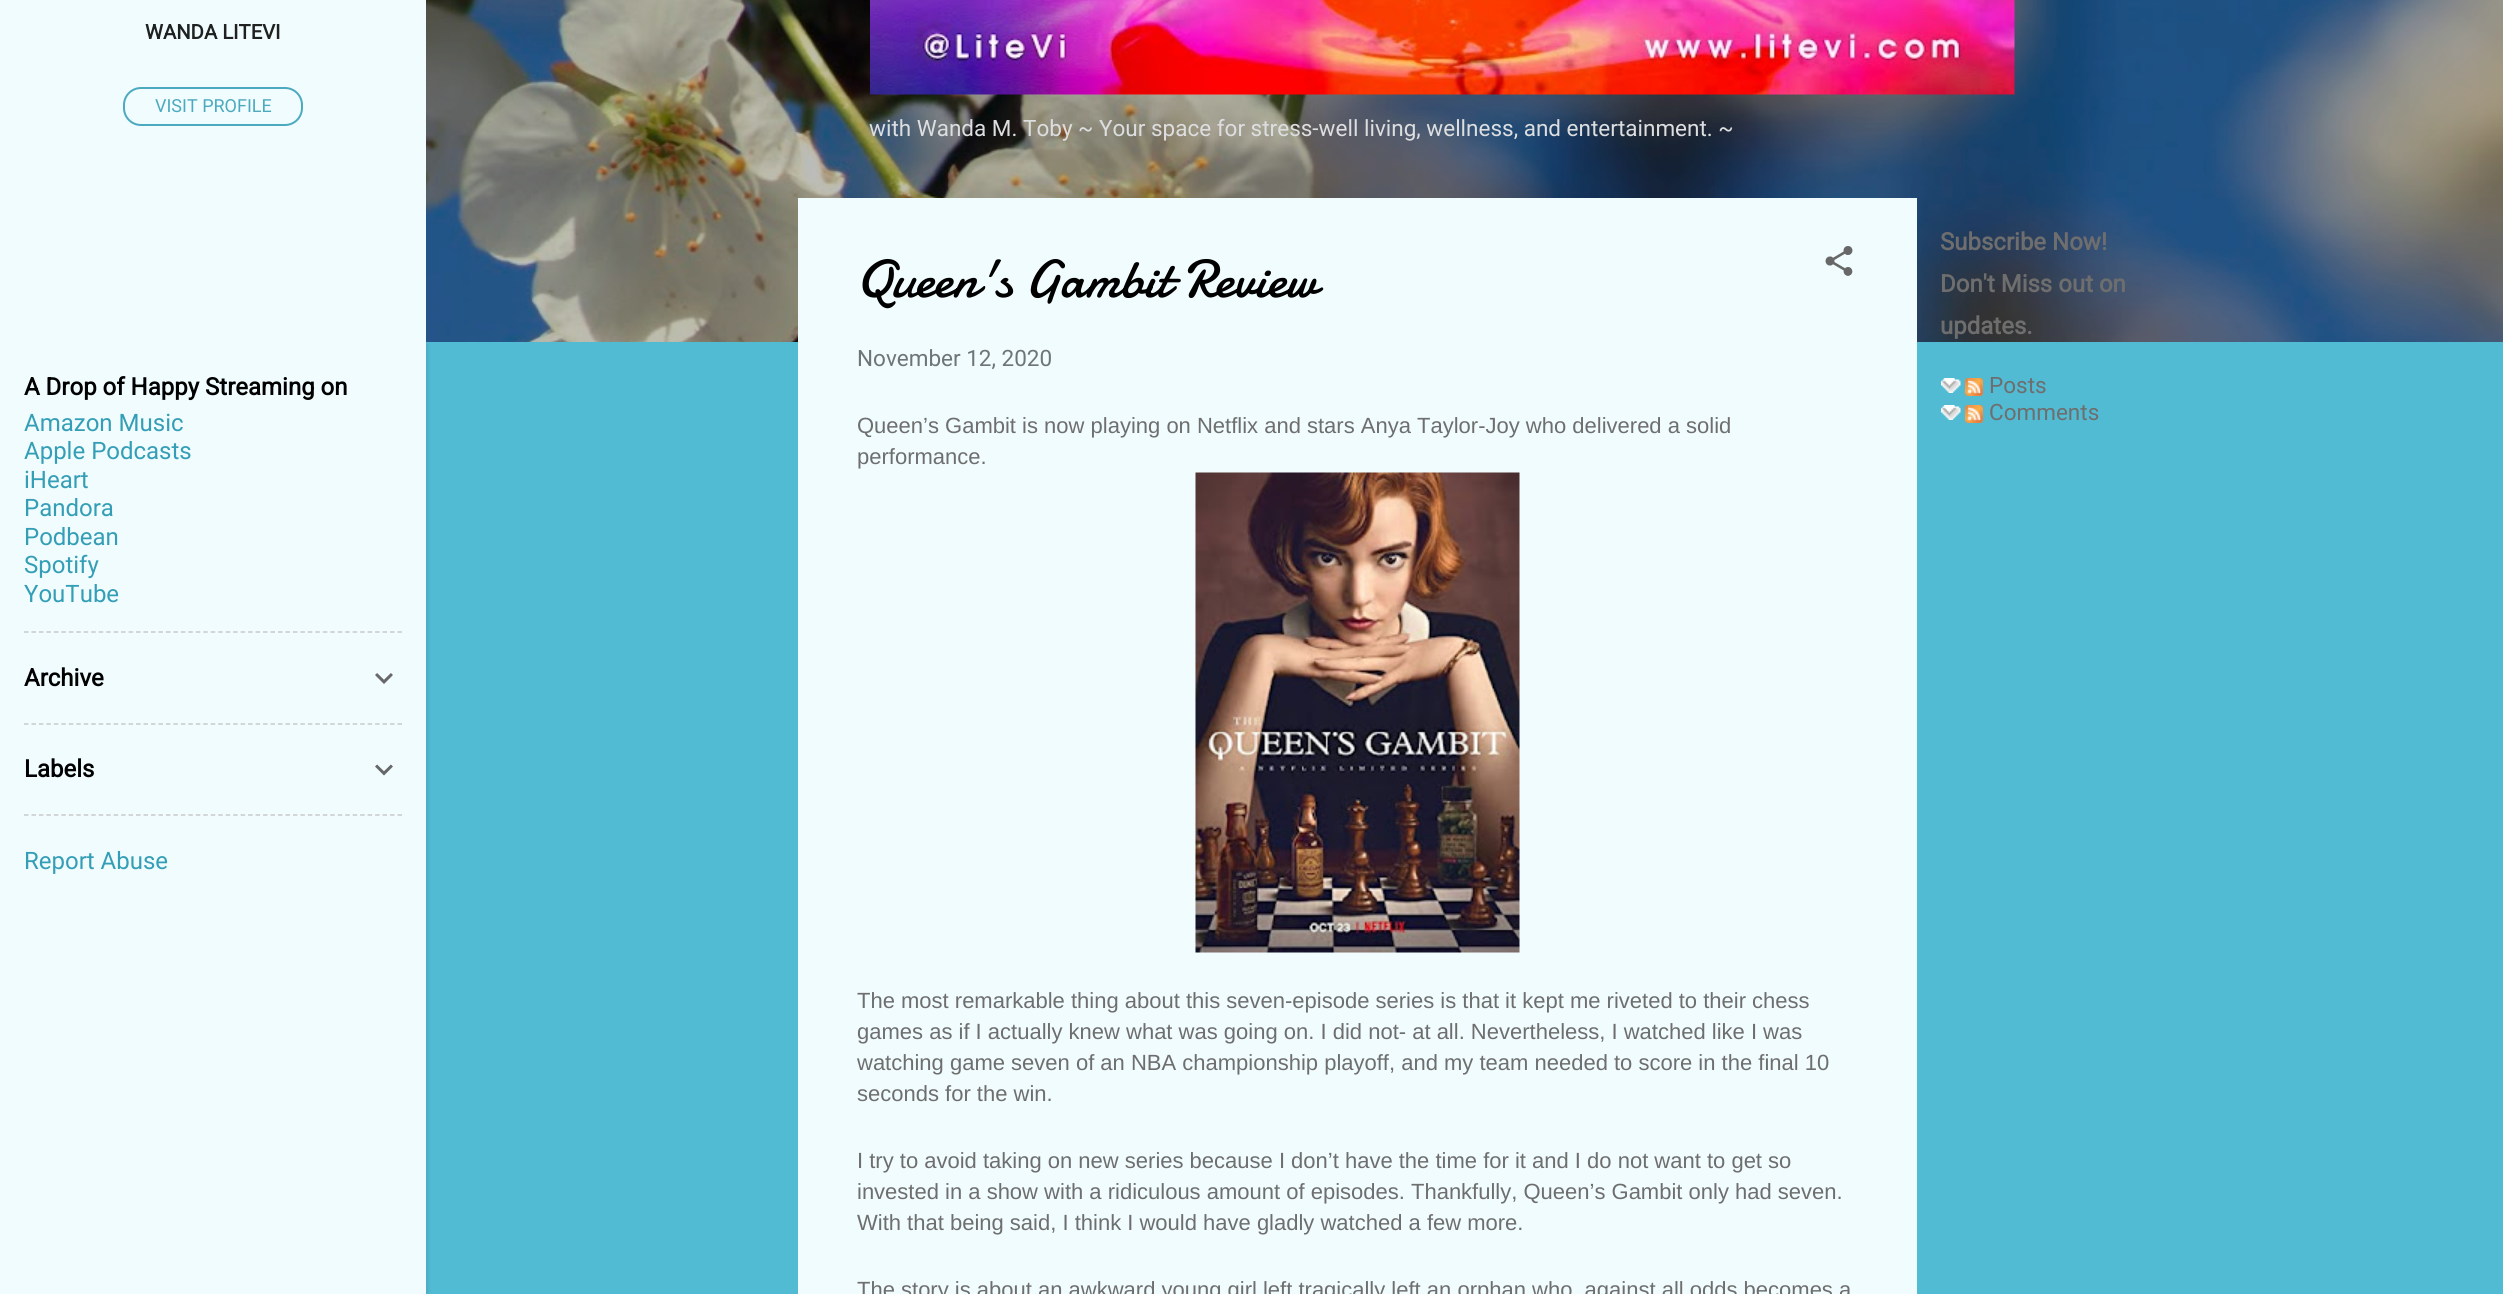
import math
import cairo

surface = cairo.ImageSurface(cairo.FORMAT_RGB24, 2503, 1294)
cr = cairo.Context(surface)
options = cairo.FontOptions()
options.set_hint_metrics(cairo.HINT_METRICS_OFF)
options.set_hint_style(cairo.HINT_STYLE_NONE)
cr.set_font_options(options)
cr.set_miter_limit(4)


def rgb(code):
    cr.set_source_rgb(*(v / 255 for v in bytes.fromhex(code[-6:])))


def rrect(x, y, w, h, r):
    cr.new_sub_path()
    for i, (u, v) in enumerate([(x + w - r, y + h - r), (x + r, y + h - r), (x + r, y + r), (x + w - r, y + r)]):
        cr.arc(u, v, r, i * math.pi / 2, (i + 1) * math.pi / 2)
    cr.close_path()


def soft_shadow(x, y, w, h, r, blur, alpha):
    cr.push_group_with_content(cairo.CONTENT_ALPHA)
    cr.set_operator(cairo.OPERATOR_SOURCE)
    for i in range(15, -16, -2):
        e = blur * i / 6
        if min(w, h) + 2 * e > 0:
            cr.set_source_rgba(0, 0, 0, alpha * math.erfc((i - 1) / 8.5) / 2)
            rrect(x - e, y - e, w + 2 * e, h + 2 * e, max(0, min(r + e + blur * .6, min(w, h) / 2 + e)))
            cr.fill()
    cr.mask(cr.pop_group())


def image(path, x, y, w, h):
    cr.save()
    cr.set_source_surface(cairo.ImageSurface.create_from_png(path), x, y)
    cr.rectangle(x, y, w, h)
    cr.fill()
    cr.restore()


rgb("#51bbd3")
cr.paint()
image("img/3.png", 426, 0, 2077, 342)
rgb("#000000")
soft_shadow(2, 344, 426, 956, 0, 2, 0.1)
rgb("#f0fcfe")
cr.rectangle(0, 0, 426, 1294)
cr.fill()
rrect(124, 88, 178, 37, 17)
rgb("#4caabf")
cr.stroke()
cr.new_path()
cr.move_to(24, 632)
cr.line_to(402, 632)
rgb("#cacaca")
cr.set_line_width(1.5)
cr.set_dash([4.5, 2.97])
cr.stroke()
image("img/1.png", 375, 673, 18, 11)
cr.new_path()
cr.move_to(24, 724)
cr.line_to(402, 724)
cr.stroke()
image("img/2.png", 375, 764, 18, 12)
cr.new_path()
cr.move_to(24, 815)
cr.line_to(402, 815)
cr.stroke()
image("img/4.png", 870, 0, 1145, 95)
rgb("#f0fcfe")
cr.rectangle(798, 198, 1119, 1096)
cr.fill()
image("img/5.png", 1825, 246, 28, 30)
image("img/6.png", 1195, 472, 325, 481)
image("img/7.png", 1941, 378, 20, 15)
image("img/8.png", 1965, 378, 18, 18)
image("img/7.png", 1941, 405, 20, 15)
image("img/8.png", 1965, 405, 18, 18)
cr.select_font_face("Roboto", cairo.FONT_SLANT_NORMAL, cairo.FONT_WEIGHT_BOLD)
cr.set_font_size(20.25)
rgb("#1f2121")
cr.move_to(145, 39)
cr.show_text("WANDA LITEVI")
cr.select_font_face("Roboto")
cr.set_font_size(18)
rgb("#4caabf")
cr.move_to(155, 112)
cr.show_text("VISIT PROFILE")
cr.select_font_face("Roboto", cairo.FONT_SLANT_NORMAL, cairo.FONT_WEIGHT_BOLD)
cr.set_font_size(24)
rgb("#000000")
cr.move_to(24, 395)
cr.show_text("A Drop of Happy Streaming on")
cr.select_font_face("Roboto")
rgb("#349eb6")
for x, y, s in [
    (24, 431, "Amazon Music"),
    (24, 459, "Apple Podcasts"),
    (24, 488, "iHeart"),
    (24, 516, "Pandora"),
    (24, 545, "Podbean"),
    (24, 573, "Spotify"),
    (24, 602, "YouTube"),
]:
    cr.move_to(x, y)
    cr.show_text(s)
cr.select_font_face("Roboto", cairo.FONT_SLANT_NORMAL, cairo.FONT_WEIGHT_BOLD)
rgb("#000000")
cr.move_to(24, 686)
cr.show_text("Archive")
cr.move_to(24, 777)
cr.show_text("Labels")
cr.select_font_face("Roboto")
rgb("#349eb6")
cr.move_to(24, 869)
cr.show_text("Report Abuse")
cr.set_font_size(22.5)
rgb("#dddee0")
cr.move_to(869, 136)
cr.show_text("with Wanda M. Toby ~ Your space for stress-well living, wellness, and entertainment. ~")
cr.select_font_face("Damion")
cr.set_font_size(54)
rgb("#000000")
cr.move_to(857, 297)
cr.show_text("Queen's Gambit Review")
cr.select_font_face("Roboto")
cr.set_font_size(22.5)
rgb("#6f7576")
cr.move_to(857, 366)
cr.show_text("November 12, 2020")
cr.select_font_face("Liberation Sans")
cr.set_font_size(22)
rgb("#6e6e6e")
for x, y, s in [
    (857, 433, "Queen’s Gambit is now playing on Netflix and stars Anya Taylor-Joy who delivered a solid"),
    (857, 464, "performance."),
    (857, 1008, "The most remarkable thing about this seven-episode series is that it kept me riveted to their chess"),
    (857, 1039, "games as if I actually knew what was going on. I did not- at all. Nevertheless, I watched like I was"),
    (857, 1070, "watching game seven of an NBA championship playoff, and my team needed to score in the final 10"),
    (857, 1101, "seconds for the win."),
    (857, 1168, "I try to avoid taking on new series because I don’t have the time for it and I do not want to get so"),
    (857, 1199, "invested in a show with a ridiculous amount of episodes. Thankfully, Queen’s Gambit only had seven."),
    (857, 1230, "With that being said, I think I would have gladly watched a few more."),
    (857, 1297, "The story is about an awkward young girl left tragically left an orphan who, against all odds becomes a"),
]:
    cr.move_to(x, y)
    cr.show_text(s)
cr.select_font_face("Roboto", cairo.FONT_SLANT_NORMAL, cairo.FONT_WEIGHT_BOLD)
cr.set_font_size(24)
for x, y, s in [
    (1940, 250, "Subscribe Now!"),
    (1940, 292, "Don't Miss out on"),
    (1940, 334, "updates."),
]:
    cr.move_to(x, y)
    cr.show_text(s)
cr.select_font_face("Roboto")
cr.set_font_size(22.5)
cr.move_to(1989, 393)
cr.show_text("Posts")
cr.move_to(1989, 420)
cr.show_text("Comments")
surface.write_to_png("page.png")
